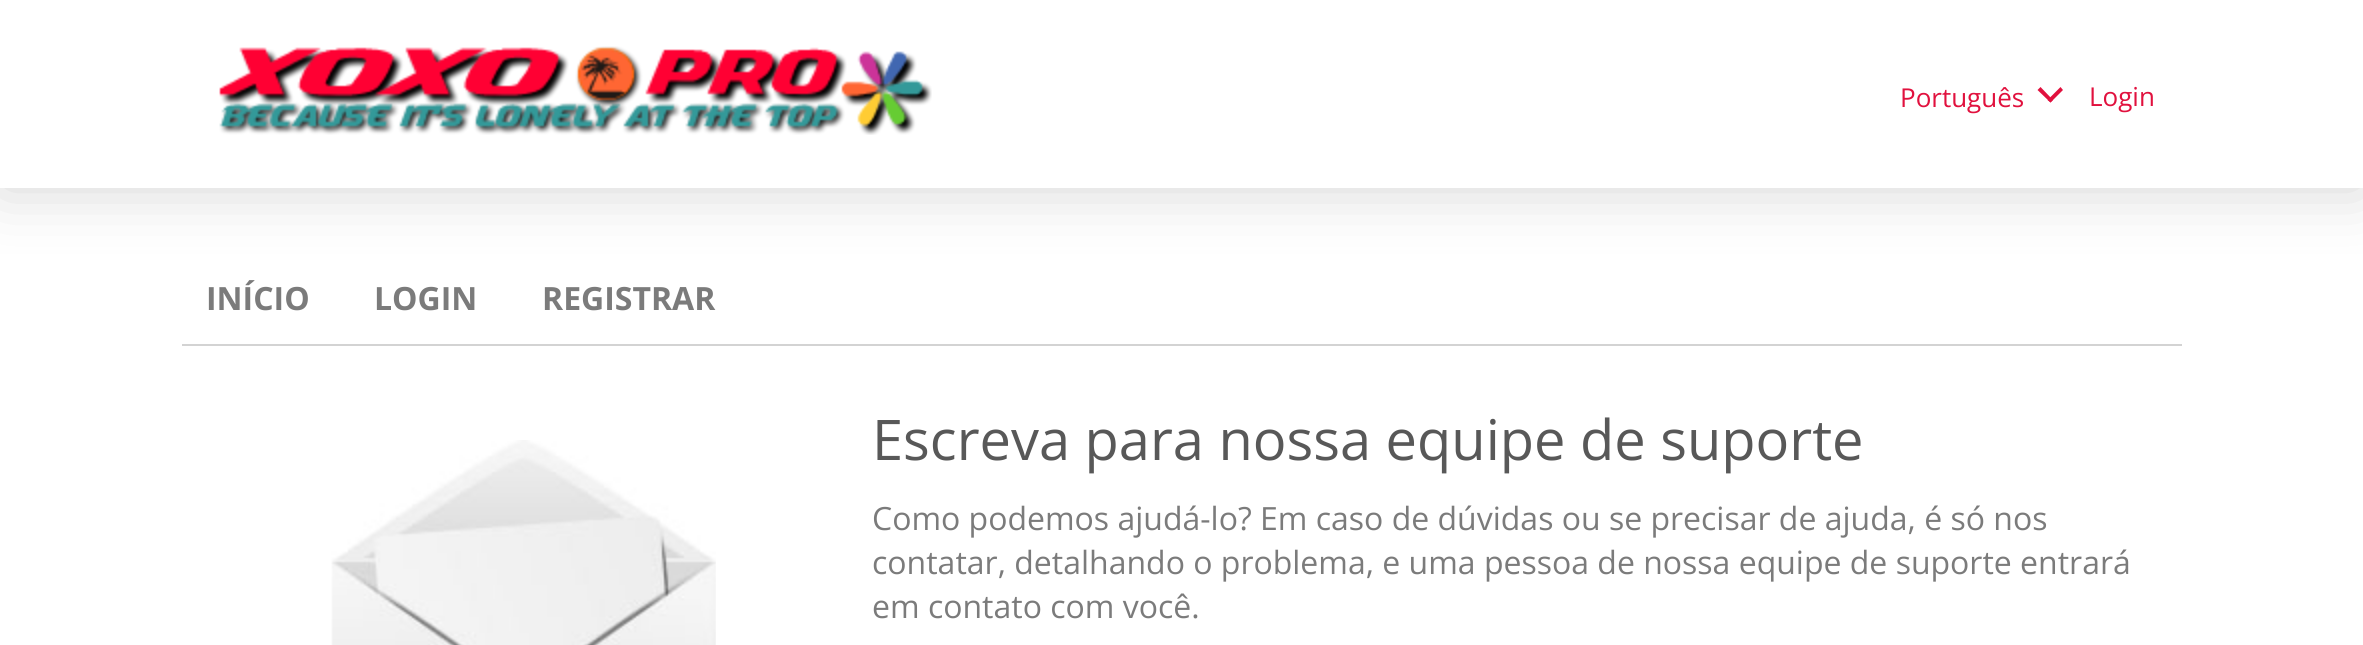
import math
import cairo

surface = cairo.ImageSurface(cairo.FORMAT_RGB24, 2363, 645)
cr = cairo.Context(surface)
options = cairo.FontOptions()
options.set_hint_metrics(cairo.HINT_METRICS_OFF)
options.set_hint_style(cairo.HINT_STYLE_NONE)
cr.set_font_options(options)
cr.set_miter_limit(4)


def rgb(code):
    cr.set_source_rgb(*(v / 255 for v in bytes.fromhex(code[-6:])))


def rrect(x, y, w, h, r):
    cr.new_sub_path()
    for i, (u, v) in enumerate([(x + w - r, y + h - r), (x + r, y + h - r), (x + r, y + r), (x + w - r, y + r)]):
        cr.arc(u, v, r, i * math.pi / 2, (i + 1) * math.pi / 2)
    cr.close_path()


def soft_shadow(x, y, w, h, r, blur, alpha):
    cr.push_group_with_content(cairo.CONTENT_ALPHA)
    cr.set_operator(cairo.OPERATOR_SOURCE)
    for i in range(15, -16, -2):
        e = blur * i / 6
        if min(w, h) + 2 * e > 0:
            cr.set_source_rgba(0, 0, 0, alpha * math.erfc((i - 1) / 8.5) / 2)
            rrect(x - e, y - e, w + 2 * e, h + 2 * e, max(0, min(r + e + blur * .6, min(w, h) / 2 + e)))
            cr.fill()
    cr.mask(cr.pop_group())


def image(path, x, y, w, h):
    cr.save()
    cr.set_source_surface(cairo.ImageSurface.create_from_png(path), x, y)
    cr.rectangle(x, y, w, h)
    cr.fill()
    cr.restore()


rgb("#ffffff")
cr.paint()
cr.save()
cr.rectangle(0, 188, 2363, 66)
cr.clip()
rgb("#d3d3d3")
soft_shadow(0, 0, 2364, 188, 0, 32, 1)
cr.restore()
image("img/1.png", 219, 46, 713, 89)
rgb("#e1113e")
cr.new_path()
cr.move_to(2060.5, 87)
cr.line_to(2063, 90)
cr.line_to(2050.5, 102.5)
cr.line_to(2047.5, 100)
cr.close_path()
cr.fill()
cr.new_path()
cr.move_to(2040.5, 87)
cr.line_to(2053, 100)
cr.line_to(2050.5, 102.5)
cr.line_to(2037.5, 90)
cr.close_path()
cr.fill()
rgb("#d3d3d3")
cr.rectangle(182, 344, 2000, 2)
cr.fill()
image("img/2.png", 331, 440, 385, 205)
cr.select_font_face("Open Sans")
cr.set_font_size(26)
rgb("#e1113e")
cr.move_to(1900, 107)
cr.show_text("Português")
cr.move_to(2089, 106)
cr.show_text("Login")
cr.select_font_face("Open Sans", cairo.FONT_SLANT_NORMAL, cairo.FONT_WEIGHT_BOLD)
cr.set_font_size(32)
rgb("#7b7b7b")
for x, y, s in [
    (206, 310, "INÍCIO"),
    (374, 310, "LOGIN"),
    (542, 310, "REGISTRAR"),
]:
    cr.move_to(x, y)
    cr.show_text(s)
cr.select_font_face("Open Sans")
cr.set_font_size(56)
rgb("#585858")
cr.move_to(872, 460)
cr.show_text("Escreva para nossa equipe de suporte")
cr.set_font_size(32)
rgb("#7b7b7b")
for x, y, s in [
    (872, 530, "Como podemos ajudá-lo? Em caso de dúvidas ou se precisar de ajuda, é só nos"),
    (872, 574, "contatar, detalhando o problema, e uma pessoa de nossa equipe de suporte entrará"),
    (872, 618, "em contato com você."),
]:
    cr.move_to(x, y)
    cr.show_text(s)
surface.write_to_png("page.png")
